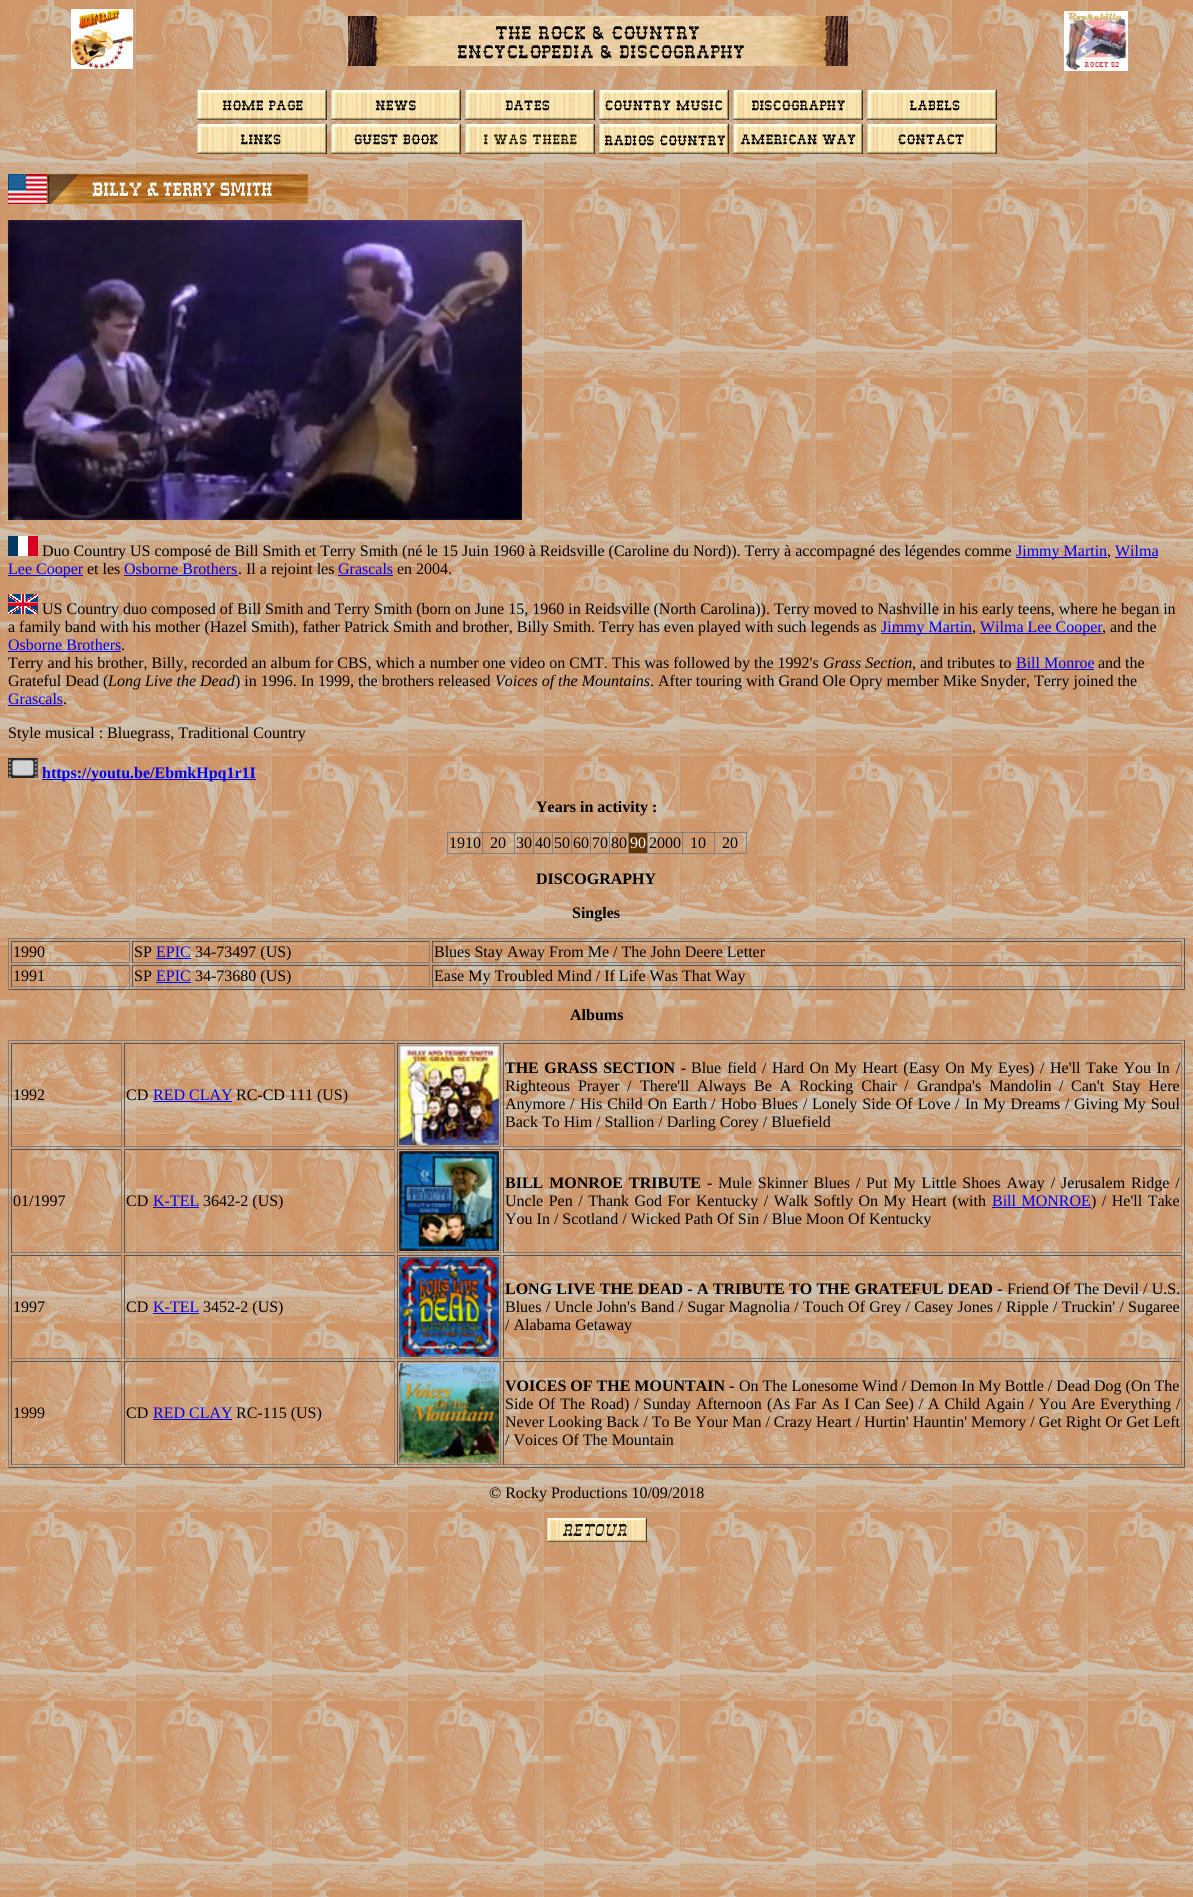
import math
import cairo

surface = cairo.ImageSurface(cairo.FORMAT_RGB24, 1193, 1897)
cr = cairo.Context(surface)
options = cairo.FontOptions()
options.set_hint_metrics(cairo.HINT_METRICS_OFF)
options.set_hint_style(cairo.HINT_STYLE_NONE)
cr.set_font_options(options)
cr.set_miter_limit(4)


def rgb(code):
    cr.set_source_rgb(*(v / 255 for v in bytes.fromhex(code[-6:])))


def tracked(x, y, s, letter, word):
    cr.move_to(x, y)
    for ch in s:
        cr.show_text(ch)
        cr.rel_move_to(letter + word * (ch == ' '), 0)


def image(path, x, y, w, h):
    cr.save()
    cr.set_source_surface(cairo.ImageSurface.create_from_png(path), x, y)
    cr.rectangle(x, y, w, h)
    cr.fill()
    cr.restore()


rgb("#ffffff")
cr.paint()
image("img/1.png", 0, 0, 1193, 1897)
image("img/2.png", 71, 9, 62, 60)
image("img/3.png", 348, 16, 500, 50)
image("img/4.png", 1064, 11, 64, 60)
image("img/5.png", 197, 90, 130, 30)
image("img/6.png", 331, 90, 130, 30)
image("img/7.png", 465, 90, 130, 30)
image("img/8.png", 599, 90, 130, 30)
image("img/9.png", 733, 90, 130, 30)
image("img/10.png", 867, 90, 130, 30)
image("img/11.png", 197, 124, 130, 30)
image("img/12.png", 331, 124, 130, 30)
image("img/13.png", 465, 124, 130, 30)
image("img/14.png", 599, 124, 130, 30)
image("img/15.png", 733, 124, 130, 30)
image("img/16.png", 867, 124, 130, 30)
image("img/17.png", 8, 174, 300, 30)
image("img/18.png", 8, 220, 514, 300)
image("img/19.png", 8, 536, 30, 20)
for x, y, w, h, color in [
    (1016, 557, 91, 1, "#0000ee"),
    (1115, 557, 43, 1, "#0000ee"),
    (8, 575, 75, 1, "#0000ee"),
    (124, 575, 114, 1, "#0000ee"),
    (338, 575, 55, 1, "#0000ee"),
]:
    rgb(color)
    cr.rectangle(x, y, w, h)
    cr.fill()
image("img/20.png", 8, 594, 30, 20)
for x, y, w, h, color in [
    (881, 633, 91, 1, "#0000ee"),
    (980, 633, 122, 1, "#0000ee"),
    (8, 651, 113, 1, "#0000ee"),
    (1016, 669, 78, 1, "#0000ee"),
    (8, 705, 55, 1, "#0000ee"),
]:
    rgb(color)
    cr.rectangle(x, y, w, h)
    cr.fill()
image("img/21.png", 8, 758, 30, 20)
for x, y, w, h, color in [
    (42, 779, 214, 1, "#0000ee"),
    (447, 832, 300, 1, "#808080"),
    (746, 832, 1, 22, "#808080"),
    (447, 853, 300, 1, "#808080"),
    (447, 832, 1, 22, "#808080"),
    (482, 832, 1, 22, "#808080"),
    (514, 832, 1, 22, "#808080"),
    (533, 832, 1, 22, "#808080"),
    (552, 832, 1, 22, "#808080"),
    (571, 832, 1, 22, "#808080"),
    (590, 832, 1, 22, "#808080"),
    (609, 832, 1, 22, "#808080"),
    (629, 833, 18, 20, "#663300"),
    (628, 832, 1, 22, "#808080"),
    (647, 832, 1, 22, "#808080"),
    (682, 832, 1, 22, "#808080"),
    (714, 832, 1, 22, "#808080"),
    (8, 938, 1177, 1, "#808080"),
    (1184, 938, 1, 52, "#555555"),
    (8, 989, 1177, 1, "#555555"),
    (8, 938, 1, 52, "#808080"),
    (11, 941, 119, 1, "#555555"),
    (129, 941, 1, 22, "#808080"),
    (11, 962, 119, 1, "#808080"),
    (11, 941, 1, 22, "#555555"),
    (132, 941, 298, 1, "#555555"),
    (429, 941, 1, 22, "#808080"),
    (132, 962, 298, 1, "#808080"),
    (132, 941, 1, 22, "#555555"),
    (156, 958, 35, 1, "#0000ee"),
    (432, 941, 750, 1, "#555555"),
    (1181, 941, 1, 22, "#808080"),
    (432, 962, 750, 1, "#808080"),
    (432, 941, 1, 22, "#555555"),
    (11, 965, 119, 1, "#555555"),
    (129, 965, 1, 22, "#808080"),
    (11, 986, 119, 1, "#808080"),
    (11, 965, 1, 22, "#555555"),
    (132, 965, 298, 1, "#555555"),
    (429, 965, 1, 22, "#808080"),
    (132, 986, 298, 1, "#808080"),
    (132, 965, 1, 22, "#555555"),
    (156, 982, 35, 1, "#0000ee"),
    (432, 965, 750, 1, "#555555"),
    (1181, 965, 1, 22, "#808080"),
    (432, 986, 750, 1, "#808080"),
    (432, 965, 1, 22, "#555555"),
    (8, 1040, 1177, 1, "#808080"),
    (1184, 1040, 1, 428, "#555555"),
    (8, 1467, 1177, 1, "#555555"),
    (8, 1040, 1, 428, "#808080"),
    (11, 1043, 111, 1, "#555555"),
    (121, 1043, 1, 104, "#808080"),
    (11, 1146, 111, 1, "#808080"),
    (11, 1043, 1, 104, "#555555"),
    (124, 1043, 271, 1, "#555555"),
    (394, 1043, 1, 104, "#808080"),
    (124, 1146, 271, 1, "#808080"),
    (124, 1043, 1, 104, "#555555"),
    (153, 1101, 79, 1, "#0000ee"),
    (397, 1043, 104, 1, "#555555"),
    (500, 1043, 1, 104, "#808080"),
    (397, 1146, 104, 1, "#808080"),
    (397, 1043, 1, 104, "#555555"),
]:
    rgb(color)
    cr.rectangle(x, y, w, h)
    cr.fill()
image("img/22.png", 399, 1045, 100, 100)
for x, y, w, h, color in [
    (503, 1043, 679, 1, "#555555"),
    (1181, 1043, 1, 104, "#808080"),
    (503, 1146, 679, 1, "#808080"),
    (503, 1043, 1, 104, "#555555"),
    (11, 1149, 111, 1, "#555555"),
    (121, 1149, 1, 104, "#808080"),
    (11, 1252, 111, 1, "#808080"),
    (11, 1149, 1, 104, "#555555"),
    (124, 1149, 271, 1, "#555555"),
    (394, 1149, 1, 104, "#808080"),
    (124, 1252, 271, 1, "#808080"),
    (124, 1149, 1, 104, "#555555"),
    (153, 1207, 46, 1, "#0000ee"),
    (397, 1149, 104, 1, "#555555"),
    (500, 1149, 1, 104, "#808080"),
    (397, 1252, 104, 1, "#808080"),
    (397, 1149, 1, 104, "#555555"),
]:
    rgb(color)
    cr.rectangle(x, y, w, h)
    cr.fill()
image("img/23.png", 399, 1151, 100, 100)
for x, y, w, h, color in [
    (503, 1149, 679, 1, "#555555"),
    (1181, 1149, 1, 104, "#808080"),
    (503, 1252, 679, 1, "#808080"),
    (503, 1149, 1, 104, "#555555"),
    (992, 1207, 99, 1, "#0000ee"),
    (11, 1255, 111, 1, "#555555"),
    (121, 1255, 1, 104, "#808080"),
    (11, 1358, 111, 1, "#808080"),
    (11, 1255, 1, 104, "#555555"),
    (124, 1255, 271, 1, "#555555"),
    (394, 1255, 1, 104, "#808080"),
    (124, 1358, 271, 1, "#808080"),
    (124, 1255, 1, 104, "#555555"),
    (153, 1313, 46, 1, "#0000ee"),
    (397, 1255, 104, 1, "#555555"),
    (500, 1255, 1, 104, "#808080"),
    (397, 1358, 104, 1, "#808080"),
    (397, 1255, 1, 104, "#555555"),
]:
    rgb(color)
    cr.rectangle(x, y, w, h)
    cr.fill()
image("img/24.png", 399, 1257, 100, 100)
for x, y, w, h, color in [
    (503, 1255, 679, 1, "#555555"),
    (1181, 1255, 1, 104, "#808080"),
    (503, 1358, 679, 1, "#808080"),
    (503, 1255, 1, 104, "#555555"),
    (11, 1361, 111, 1, "#555555"),
    (121, 1361, 1, 104, "#808080"),
    (11, 1464, 111, 1, "#808080"),
    (11, 1361, 1, 104, "#555555"),
    (124, 1361, 271, 1, "#555555"),
    (394, 1361, 1, 104, "#808080"),
    (124, 1464, 271, 1, "#808080"),
    (124, 1361, 1, 104, "#555555"),
    (153, 1419, 79, 1, "#0000ee"),
    (397, 1361, 104, 1, "#555555"),
    (500, 1361, 1, 104, "#808080"),
    (397, 1464, 104, 1, "#808080"),
    (397, 1361, 1, 104, "#555555"),
]:
    rgb(color)
    cr.rectangle(x, y, w, h)
    cr.fill()
image("img/25.png", 399, 1363, 100, 100)
for x, y, w, h, color in [
    (503, 1361, 679, 1, "#555555"),
    (1181, 1361, 1, 104, "#808080"),
    (503, 1464, 679, 1, "#808080"),
    (503, 1361, 1, 104, "#555555"),
]:
    rgb(color)
    cr.rectangle(x, y, w, h)
    cr.fill()
image("img/26.png", 547, 1518, 100, 24)
cr.select_font_face("Liberation Serif")
cr.set_font_size(16)
rgb("#000000")
cr.move_to(42, 556)
cr.show_text("Duo Country US composé de Bill Smith et Terry Smith (né le 15 Juin 1960 à Reidsville (Caroline du Nord)). Terry à accompagné des légendes comme")
rgb("#0000ee")
cr.move_to(1016, 556)
cr.show_text("Jimmy Martin")
rgb("#000000")
cr.move_to(1107, 556)
cr.show_text(",")
rgb("#0000ee")
cr.move_to(1115, 556)
cr.show_text("Wilma")
cr.move_to(8, 574)
cr.show_text("Lee Cooper")
rgb("#000000")
cr.move_to(87, 574)
cr.show_text("et les")
rgb("#0000ee")
cr.move_to(124, 574)
cr.show_text("Osborne Brothers")
rgb("#000000")
cr.move_to(238, 574)
cr.show_text(". Il a rejoint les")
rgb("#0000ee")
cr.move_to(338, 574)
cr.show_text("Grascals")
rgb("#000000")
for x, y, s in [
    (397, 574, "en 2004."),
    (42, 614, "US Country duo composed of Bill Smith and Terry Smith (born on June 15, 1960 in Reidsville (North Carolina)). Terry moved to Nashville in his early teens, where he began in"),
    (8, 632, "a family band with his mother (Hazel Smith), father Patrick Smith and brother, Billy Smith. Terry has even played with such legends as"),
]:
    cr.move_to(x, y)
    cr.show_text(s)
rgb("#0000ee")
cr.move_to(881, 632)
cr.show_text("Jimmy Martin")
rgb("#000000")
cr.move_to(972, 632)
cr.show_text(",")
rgb("#0000ee")
cr.move_to(980, 632)
cr.show_text("Wilma Lee Cooper")
rgb("#000000")
cr.move_to(1102, 632)
cr.show_text(", and the")
rgb("#0000ee")
cr.move_to(8, 650)
cr.show_text("Osborne Brothers")
rgb("#000000")
cr.move_to(121, 650)
cr.show_text(".")
cr.move_to(8, 668)
cr.show_text("Terry and his brother, Billy, recorded an album for CBS, which a number one video on CMT. This was followed by the 1992's")
cr.select_font_face("Liberation Serif", cairo.FONT_SLANT_ITALIC)
cr.move_to(823, 668)
cr.show_text("Grass Section")
cr.select_font_face("Liberation Serif")
cr.move_to(912, 668)
cr.show_text(", and tributes to")
rgb("#0000ee")
cr.move_to(1016, 668)
cr.show_text("Bill Monroe")
rgb("#000000")
cr.move_to(1098, 668)
cr.show_text("and the")
cr.move_to(8, 686)
cr.show_text("Grateful Dead (")
cr.select_font_face("Liberation Serif", cairo.FONT_SLANT_ITALIC)
cr.move_to(108, 686)
cr.show_text("Long Live the Dead")
cr.select_font_face("Liberation Serif")
cr.move_to(235, 686)
cr.show_text(") in 1996. In 1999, the brothers released")
cr.select_font_face("Liberation Serif", cairo.FONT_SLANT_ITALIC)
cr.move_to(495, 686)
cr.show_text("Voices of the Mountains")
cr.select_font_face("Liberation Serif")
cr.move_to(650, 686)
cr.show_text(". After touring with Grand Ole Opry member Mike Snyder, Terry joined the")
rgb("#0000ee")
cr.move_to(8, 704)
cr.show_text("Grascals")
rgb("#000000")
cr.move_to(63, 704)
cr.show_text(".")
cr.move_to(8, 738)
cr.show_text("Style musical : Bluegrass, Traditional Country")
cr.select_font_face("Liberation Serif", cairo.FONT_SLANT_NORMAL, cairo.FONT_WEIGHT_BOLD)
rgb("#0000ee")
cr.move_to(42, 778)
cr.show_text("https://youtu.be/EbmkHpq1r1I")
rgb("#000000")
cr.move_to(536, 812)
cr.show_text("Years in activity :")
cr.select_font_face("Liberation Serif")
for x, y, s in [
    (449, 848, "1910"),
    (490, 848, "20"),
    (516, 848, "30"),
    (535, 848, "40"),
    (554, 848, "50"),
    (573, 848, "60"),
    (592, 848, "70"),
    (611, 848, "80"),
]:
    cr.move_to(x, y)
    cr.show_text(s)
rgb("#ffffff")
cr.move_to(630, 848)
cr.show_text("90")
rgb("#000000")
for x, y, s in [
    (649, 848, "2000"),
    (690, 848, "10"),
    (722, 848, "20"),
]:
    cr.move_to(x, y)
    cr.show_text(s)
cr.select_font_face("Liberation Serif", cairo.FONT_SLANT_NORMAL, cairo.FONT_WEIGHT_BOLD)
cr.move_to(536, 884)
cr.show_text("DISCOGRAPHY")
cr.move_to(572, 918)
cr.show_text("Singles")
cr.select_font_face("Liberation Serif")
cr.move_to(13, 957)
cr.show_text("1990")
cr.move_to(134, 957)
cr.show_text("SP")
rgb("#0000ee")
cr.move_to(156, 957)
cr.show_text("EPIC")
rgb("#000000")
for x, y, s in [
    (195, 957, "34-73497 (US)"),
    (434, 957, "Blues Stay Away From Me / The John Deere Letter"),
    (13, 981, "1991"),
    (134, 981, "SP"),
]:
    cr.move_to(x, y)
    cr.show_text(s)
rgb("#0000ee")
cr.move_to(156, 981)
cr.show_text("EPIC")
rgb("#000000")
cr.move_to(195, 981)
cr.show_text("34-73680 (US)")
cr.move_to(434, 981)
cr.show_text("Ease My Troubled Mind / If Life Was That Way")
cr.select_font_face("Liberation Serif", cairo.FONT_SLANT_NORMAL, cairo.FONT_WEIGHT_BOLD)
cr.move_to(570, 1020)
cr.show_text("Albums")
cr.select_font_face("Liberation Serif")
cr.move_to(13, 1100)
cr.show_text("1992")
cr.move_to(126, 1100)
cr.show_text("CD")
rgb("#0000ee")
cr.move_to(153, 1100)
cr.show_text("RED CLAY")
rgb("#000000")
cr.move_to(236, 1100)
cr.show_text("RC-CD 111 (US)")
cr.select_font_face("Liberation Serif", cairo.FONT_SLANT_NORMAL, cairo.FONT_WEIGHT_BOLD)
tracked(505, 1073, "THE GRASS SECTION -", 0, 1.5)
cr.select_font_face("Liberation Serif")
tracked(691, 1073, "Blue field", 0, 2)
cr.move_to(762, 1073)
cr.show_text("/")
tracked(772, 1073, "Hard On My Heart (Easy On My Eyes)", 0, 1.5)
cr.move_to(1040, 1073)
cr.show_text("/")
tracked(1050, 1073, "He'll Take You In", 0, 1.5)
cr.move_to(1176, 1073)
cr.show_text("/")
tracked(505, 1091, "Righteous Prayer", 0, 4)
cr.move_to(627, 1091)
cr.show_text("/")
tracked(640, 1091, "There'll Always Be A", 0, 4)
tracked(799, 1091, "Rocking Chair", 0, 4)
cr.move_to(904, 1091)
cr.show_text("/")
tracked(917, 1091, "Grandpa's Mandolin", 0, 4)
cr.move_to(1059, 1091)
cr.show_text("/")
tracked(1071, 1091, "Can't Stay Here", 0, 4)
cr.move_to(505, 1109)
cr.show_text("Anymore")
cr.move_to(570, 1109)
cr.show_text("/")
tracked(580, 1109, "His Child On Earth", 0, 1)
cr.move_to(711, 1109)
cr.show_text("/")
tracked(721, 1109, "Hobo Blues", 0, 1)
cr.move_to(803, 1109)
cr.show_text("/")
tracked(812, 1109, "Lonely Side Of Love", 0, 1)
cr.move_to(955, 1109)
cr.show_text("/")
tracked(965, 1109, "In My Dreams", 0, 1)
cr.move_to(1065, 1109)
cr.show_text("/")
tracked(1074, 1109, "Giving My Soul", 0, 1)
for x, y, s in [
    (505, 1127, "Back To Him / Stallion / Darling Corey / Bluefield"),
    (13, 1206, "01/1997"),
    (126, 1206, "CD"),
]:
    cr.move_to(x, y)
    cr.show_text(s)
rgb("#0000ee")
cr.move_to(153, 1206)
cr.show_text("K-TEL")
rgb("#000000")
cr.move_to(203, 1206)
cr.show_text("3642-2 (US)")
cr.select_font_face("Liberation Serif", cairo.FONT_SLANT_NORMAL, cairo.FONT_WEIGHT_BOLD)
tracked(505, 1188, "BILL MONROE TRIBUTE -", 0, 2)
cr.select_font_face("Liberation Serif")
tracked(718, 1188, "Mule Skinner Blues /", 0, 2)
tracked(866, 1188, "Put My Little Shoes Away / Jerusalem Ridge /", 0, 2)
tracked(505, 1206, "Uncle Pen / Thank God For", 0, 1.5)
tracked(696, 1206, "Kentucky / Walk Softly On My Heart (with", 0, 1.5)
rgb("#0000ee")
tracked(992, 1206, "Bill MONROE", 0, 1.5)
rgb("#000000")
tracked(1091, 1206, ") / He'll Take", 0, 1.5)
for x, y, s in [
    (505, 1224, "You In / Scotland / Wicked Path Of Sin / Blue Moon Of Kentucky"),
    (13, 1312, "1997"),
    (126, 1312, "CD"),
]:
    cr.move_to(x, y)
    cr.show_text(s)
rgb("#0000ee")
cr.move_to(153, 1312)
cr.show_text("K-TEL")
rgb("#000000")
cr.move_to(203, 1312)
cr.show_text("3452-2 (US)")
cr.select_font_face("Liberation Serif", cairo.FONT_SLANT_NORMAL, cairo.FONT_WEIGHT_BOLD)
tracked(505, 1294, "LONG LIVE THE DEAD - A TRIBUTE TO THE GRATEFUL DEAD -", 0, 0.25)
cr.select_font_face("Liberation Serif")
tracked(1007, 1294, "Friend Of The Devil / U.S.", 0, 0.25)
tracked(505, 1312, "Blues / Uncle John's Band / Sugar Magnolia / Touch Of Grey / Casey Jones / Ripple / Truckin' / Sugaree", 0, 0.25)
for x, y, s in [
    (505, 1330, "/ Alabama Getaway"),
    (13, 1418, "1999"),
    (126, 1418, "CD"),
]:
    cr.move_to(x, y)
    cr.show_text(s)
rgb("#0000ee")
cr.move_to(153, 1418)
cr.show_text("RED CLAY")
rgb("#000000")
cr.move_to(236, 1418)
cr.show_text("RC-115 (US)")
cr.select_font_face("Liberation Serif", cairo.FONT_SLANT_NORMAL, cairo.FONT_WEIGHT_BOLD)
cr.move_to(505, 1391)
cr.show_text("VOICES OF THE MOUNTAIN -")
cr.select_font_face("Liberation Serif")
cr.move_to(739, 1391)
cr.show_text("On The Lonesome Wind / Demon In My Bottle / Dead Dog (On The")
for x, y, s in [
    (505, 1409, "Side Of The Road) /"),
    (643, 1409, "Sunday Afternoon"),
    (767, 1409, "(As Far As I Can See) /"),
    (928, 1409, "A Child Again / You"),
    (1071, 1409, "Are Everything /"),
]:
    tracked(x, y, s, 0, 1)
for x, y, s in [
    (505, 1427, "Never Looking Back / To Be Your Man / Crazy Heart / Hurtin' Hauntin' Memory / Get Right Or Get Left"),
    (505, 1445, "/ Voices Of The Mountain"),
    (489, 1498, "© Rocky Productions 10/09/2018"),
]:
    cr.move_to(x, y)
    cr.show_text(s)
surface.write_to_png("page.png")
